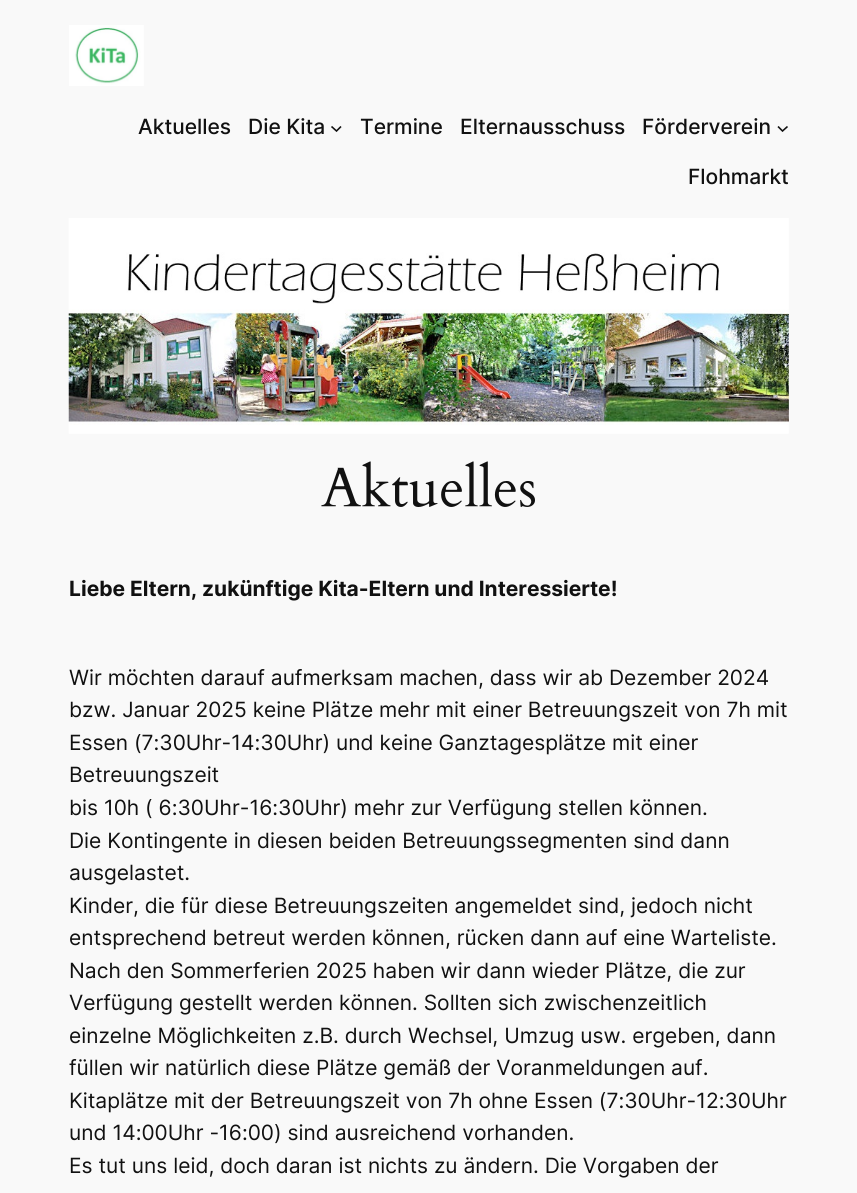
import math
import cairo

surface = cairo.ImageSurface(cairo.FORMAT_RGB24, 857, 1193)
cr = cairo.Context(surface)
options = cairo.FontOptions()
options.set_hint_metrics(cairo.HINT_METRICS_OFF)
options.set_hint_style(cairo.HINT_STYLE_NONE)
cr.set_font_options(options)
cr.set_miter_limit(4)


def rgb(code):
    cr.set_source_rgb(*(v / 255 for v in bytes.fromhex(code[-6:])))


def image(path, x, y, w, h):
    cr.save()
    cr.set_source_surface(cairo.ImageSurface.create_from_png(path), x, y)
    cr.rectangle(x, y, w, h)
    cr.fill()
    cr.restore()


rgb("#f9f9f9")
cr.paint()
image("img/1.png", 69, 25, 75, 61)
cr.new_path()
cr.move_to(331.5, 126.5)
cr.line_to(336.5, 131)
cr.line_to(341, 126.5)
rgb("#111111")
cr.set_line_width(1.6)
cr.stroke()
cr.new_path()
cr.move_to(778, 126.5)
cr.line_to(782.5, 131)
cr.line_to(787.5, 126.5)
cr.stroke()
image("img/2.png", 68, 218, 721, 216)
image("img/3.png", 321, 461, 214, 46)
cr.select_font_face("Inter Medium")
cr.set_font_size(21)
for x, y, s in [
    (138, 134, "Aktuelles"),
    (248, 134, "Die Kita"),
    (360, 134, "Termine"),
    (460, 134, "Elternausschuss"),
    (642, 134, "Förderverein"),
    (688, 184, "Flohmarkt"),
]:
    cr.move_to(x, y)
    cr.show_text(s)
cr.select_font_face("Inter", cairo.FONT_SLANT_NORMAL, cairo.FONT_WEIGHT_BOLD)
cr.move_to(69, 596)
cr.show_text("Liebe Eltern, zukünftige Kita-Eltern und Interessierte!")
cr.select_font_face("Inter")
for x, y, s in [
    (69, 685, "Wir möchten darauf aufmerksam machen, dass wir ab Dezember 2024"),
    (69, 717, "bzw. Januar 2025 keine Plätze mehr mit einer Betreuungszeit von 7h mit"),
    (69, 750, "Essen (7:30Uhr-14:30Uhr) und keine Ganztagesplätze mit einer"),
    (69, 782, "Betreuungszeit"),
    (69, 815, "bis 10h ( 6:30Uhr-16:30Uhr) mehr zur Verfügung stellen können."),
    (69, 848, "Die Kontingente in diesen beiden Betreuungssegmenten sind dann"),
    (69, 880, "ausgelastet."),
    (69, 913, "Kinder, die für diese Betreuungszeiten angemeldet sind, jedoch nicht"),
    (69, 945, "entsprechend betreut werden können, rücken dann auf eine Warteliste."),
    (69, 978, "Nach den Sommerferien 2025 haben wir dann wieder Plätze, die zur"),
    (69, 1010, "Verfügung gestellt werden können. Sollten sich zwischenzeitlich"),
    (69, 1043, "einzelne Möglichkeiten z.B. durch Wechsel, Umzug usw. ergeben, dann"),
    (69, 1075, "füllen wir natürlich diese Plätze gemäß der Voranmeldungen auf."),
    (69, 1108, "Kitaplätze mit der Betreuungszeit von 7h ohne Essen (7:30Uhr-12:30Uhr"),
    (69, 1140, "und 14:00Uhr -16:00) sind ausreichend vorhanden."),
    (69, 1173, "Es tut uns leid, doch daran ist nichts zu ändern. Die Vorgaben der"),
]:
    cr.move_to(x, y)
    cr.show_text(s)
surface.write_to_png("page.png")
